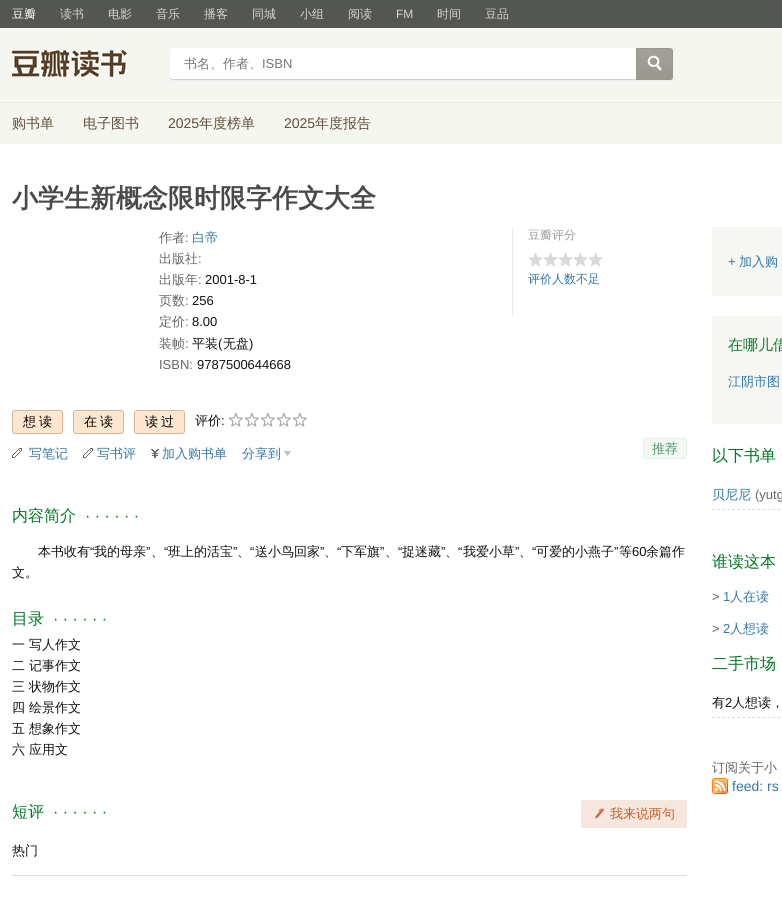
import math
import cairo

surface = cairo.ImageSurface(cairo.FORMAT_RGB24, 782, 902)
cr = cairo.Context(surface)
options = cairo.FontOptions()
options.set_hint_metrics(cairo.HINT_METRICS_OFF)
options.set_hint_style(cairo.HINT_STYLE_NONE)
cr.set_font_options(options)
cr.set_miter_limit(4)


def rgb(code):
    cr.set_source_rgb(*(v / 255 for v in bytes.fromhex(code[-6:])))


def tracked(x, y, s, letter, word):
    cr.move_to(x, y)
    for ch in s:
        cr.show_text(ch)
        cr.rel_move_to(letter + word * (ch == ' '), 0)


def rrect(x, y, w, h, r):
    cr.new_sub_path()
    for i, (u, v) in enumerate([(x + w - r, y + h - r), (x + r, y + h - r), (x + r, y + r), (x + w - r, y + r)]):
        cr.arc(u, v, r, i * math.pi / 2, (i + 1) * math.pi / 2)
    cr.close_path()


def image(path, x, y, w, h):
    cr.save()
    cr.set_source_surface(cairo.ImageSurface.create_from_png(path), x, y)
    cr.rectangle(x, y, w, h)
    cr.fill()
    cr.restore()


rgb("#ffffff")
cr.paint()
for x, y, w, h, color in [
    (0, 0, 782, 28, "#545652"),
    (0, 28, 782, 116, "#f6f6f1"),
    (0, 102, 782, 1, "#e9e9e2"),
]:
    rgb(color)
    cr.rectangle(x, y, w, h)
    cr.fill()
image("img/1.png", 12, 50, 115, 27)
image("img/2.png", 170, 48, 466, 33)
image("img/3.png", 636, 48, 37, 33)
rgb("#eaeaea")
cr.rectangle(512, 229, 1, 87)
cr.fill()
image("img/4.png", 528, 252, 75, 15)
rgb("#ffe6ce")
rrect(12.5, 410.5, 50, 23, 2.5)
cr.fill_preserve()
rgb("#d6b79d")
cr.set_line_width(1)
cr.stroke()
rgb("#ffe6ce")
rrect(73.5, 410.5, 50, 23, 2.5)
cr.fill_preserve()
rgb("#d6b79d")
cr.stroke()
rgb("#ffe6ce")
rrect(134.5, 410.5, 50, 23, 2.5)
cr.fill_preserve()
rgb("#d6b79d")
cr.stroke()
image("img/5.png", 228, 412, 15, 15)
image("img/5.png", 244, 412, 15, 15)
image("img/5.png", 260, 412, 15, 15)
image("img/5.png", 276, 412, 15, 15)
image("img/5.png", 292, 412, 15, 15)
image("img/6.png", 12, 448, 10, 10)
image("img/6.png", 83, 448, 10, 10)
image("img/7.png", 151, 449, 8, 9)
image("img/8.png", 284, 451, 7, 5)
rgb("#f2f8f2")
rrect(643.5, 438.5, 43, 20, 2.5)
cr.fill_preserve()
rgb("#e3f1ed")
cr.stroke()
rgb("#f6e7de")
rrect(581, 800, 106, 28, 2)
cr.fill()
image("img/9.png", 595, 808, 9, 11)
rgb("#dddddd")
rrect(12, 875, 675, 1, 0.5)
cr.fill()
rgb("#f6f6f2")
cr.rectangle(712, 227, 70, 69)
cr.fill()
cr.rectangle(712, 316, 70, 108)
cr.fill()
cr.new_path()
cr.move_to(712, 509.5)
cr.line_to(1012, 509.5)
rgb("#dddddd")
cr.set_dash([3, 2.03])
cr.stroke()
cr.new_path()
cr.move_to(712, 717.5)
cr.line_to(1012, 717.5)
cr.stroke()
image("img/10.png", 712, 778, 16, 16)
cr.select_font_face("WenQuanYi Zen Hei Medium")
cr.set_font_size(12)
rgb("#ffffff")
cr.move_to(12, 18)
cr.show_text("豆瓣")
rgb("#d5d5d5")
for x, y, s in [
    (60, 18, "读书"),
    (108, 18, "电影"),
    (156, 18, "音乐"),
    (204, 18, "播客"),
    (252, 18, "同城"),
    (300, 18, "小组"),
    (348, 18, "阅读"),
]:
    cr.move_to(x, y)
    cr.show_text(s)
cr.select_font_face("Liberation Sans")
cr.move_to(396, 18)
cr.show_text("FM")
cr.select_font_face("WenQuanYi Zen Hei Medium")
cr.move_to(437, 18)
cr.show_text("时间")
cr.move_to(485, 18)
cr.show_text("豆品")
cr.set_font_size(13)
rgb("#757575")
cr.move_to(184, 68)
cr.show_text("书名、作者、")
cr.select_font_face("Liberation Sans")
cr.move_to(262, 68)
cr.show_text("ISBN")
cr.select_font_face("WenQuanYi Zen Hei Medium")
cr.set_font_size(14)
rgb("#614e3c")
cr.move_to(12, 128)
cr.show_text("购书单")
cr.move_to(83, 128)
cr.show_text("电子图书")
cr.select_font_face("Liberation Sans")
cr.move_to(168, 128)
cr.show_text("2025")
cr.select_font_face("WenQuanYi Zen Hei Medium")
cr.move_to(199, 128)
cr.show_text("年度榜单")
cr.select_font_face("Liberation Sans")
cr.move_to(284, 128)
cr.show_text("2025")
cr.select_font_face("WenQuanYi Zen Hei Medium")
cr.move_to(315, 128)
cr.show_text("年度报告")
cr.select_font_face("WenQuanYi Zen Hei", cairo.FONT_SLANT_NORMAL, cairo.FONT_WEIGHT_BOLD)
cr.set_font_size(26)
rgb("#494949")
cr.move_to(12, 207)
cr.show_text("小学生新概念限时限字作文大全")
cr.select_font_face("WenQuanYi Zen Hei Medium")
cr.set_font_size(13)
rgb("#666666")
cr.move_to(159, 242)
cr.show_text("作者")
cr.select_font_face("Liberation Sans")
cr.move_to(185, 242)
cr.show_text(":")
cr.select_font_face("WenQuanYi Zen Hei Medium")
rgb("#3377aa")
cr.move_to(192, 242)
cr.show_text("白帝")
rgb("#666666")
cr.move_to(159, 263)
cr.show_text("出版社")
cr.select_font_face("Liberation Sans")
cr.move_to(198, 263)
cr.show_text(":")
cr.select_font_face("WenQuanYi Zen Hei Medium")
cr.move_to(159, 284)
cr.show_text("出版年")
cr.select_font_face("Liberation Sans")
cr.move_to(198, 284)
cr.show_text(":")
rgb("#111111")
cr.move_to(205, 284)
cr.show_text("2001-8-1")
cr.select_font_face("WenQuanYi Zen Hei Medium")
rgb("#666666")
cr.move_to(159, 305)
cr.show_text("页数")
cr.select_font_face("Liberation Sans")
cr.move_to(185, 305)
cr.show_text(":")
rgb("#111111")
cr.move_to(192, 305)
cr.show_text("256")
cr.select_font_face("WenQuanYi Zen Hei Medium")
rgb("#666666")
cr.move_to(159, 326)
cr.show_text("定价")
cr.select_font_face("Liberation Sans")
cr.move_to(185, 326)
cr.show_text(":")
rgb("#111111")
cr.move_to(192, 326)
cr.show_text("8.00")
cr.select_font_face("WenQuanYi Zen Hei Medium")
rgb("#666666")
cr.move_to(159, 348)
cr.show_text("装帧")
cr.select_font_face("Liberation Sans")
cr.move_to(185, 348)
cr.show_text(":")
cr.select_font_face("WenQuanYi Zen Hei Medium")
rgb("#111111")
cr.move_to(192, 348)
cr.show_text("平装")
cr.select_font_face("Liberation Sans")
cr.move_to(218, 348)
cr.show_text("(")
cr.select_font_face("WenQuanYi Zen Hei Medium")
cr.move_to(223, 348)
cr.show_text("无盘")
cr.select_font_face("Liberation Sans")
cr.move_to(249, 348)
cr.show_text(")")
rgb("#666666")
cr.move_to(159, 369)
cr.show_text("ISBN:")
rgb("#111111")
cr.move_to(197, 369)
cr.show_text("9787500644668")
cr.select_font_face("WenQuanYi Zen Hei Medium")
cr.set_font_size(12)
rgb("#9b9b9b")
cr.move_to(528, 239)
cr.show_text("豆瓣评分")
rgb("#3377aa")
cr.move_to(528, 283)
cr.show_text("评价人数不足")
cr.set_font_size(13)
rgb("#000000")
for x, y, s in [
    (23, 426, "想读"),
    (84, 426, "在读"),
    (145, 426, "读过"),
]:
    tracked(x, y, s, 3, 0)
rgb("#111111")
cr.move_to(195, 425)
cr.show_text("评价")
cr.select_font_face("Liberation Sans")
cr.move_to(221, 425)
cr.show_text(":")
cr.select_font_face("WenQuanYi Zen Hei Medium")
rgb("#3377aa")
for x, y, s in [
    (29, 458, "写笔记"),
    (97, 458, "写书评"),
    (162, 458, "加入购书单"),
    (242, 458, "分享到"),
]:
    cr.move_to(x, y)
    cr.show_text(s)
rgb("#4f946e")
cr.move_to(652, 453)
cr.show_text("推荐")
cr.set_font_size(16)
rgb("#007722")
cr.move_to(12, 521)
cr.show_text("内容简介")
cr.select_font_face("Liberation Sans")
cr.move_to(85, 521)
cr.show_text("· · · · · ·")
cr.select_font_face("WenQuanYi Zen Hei Medium")
cr.set_font_size(13)
rgb("#111111")
cr.move_to(38, 556)
cr.show_text("本书收有")
cr.select_font_face("Liberation Sans")
cr.move_to(90, 556)
cr.show_text("“")
cr.select_font_face("WenQuanYi Zen Hei Medium")
cr.move_to(94, 556)
cr.show_text("我的母亲")
cr.select_font_face("Liberation Sans")
cr.move_to(146, 556)
cr.show_text("”")
cr.move_to(164, 556)
cr.show_text("“")
cr.select_font_face("WenQuanYi Zen Hei Medium")
cr.move_to(168, 556)
cr.show_text("班上的活宝")
cr.select_font_face("Liberation Sans")
cr.move_to(233, 556)
cr.show_text("”")
cr.move_to(250, 556)
cr.show_text("“")
cr.select_font_face("WenQuanYi Zen Hei Medium")
cr.move_to(255, 556)
cr.show_text("送小鸟回家")
cr.select_font_face("Liberation Sans")
cr.move_to(320, 556)
cr.show_text("”")
cr.move_to(337, 556)
cr.show_text("“")
cr.select_font_face("WenQuanYi Zen Hei Medium")
cr.move_to(341, 556)
cr.show_text("下军旗")
cr.select_font_face("Liberation Sans")
cr.move_to(380, 556)
cr.show_text("”")
cr.move_to(398, 556)
cr.show_text("“")
cr.select_font_face("WenQuanYi Zen Hei Medium")
cr.move_to(402, 556)
cr.show_text("捉迷藏")
cr.select_font_face("Liberation Sans")
cr.move_to(441, 556)
cr.show_text("”")
cr.move_to(458, 556)
cr.show_text("“")
cr.select_font_face("WenQuanYi Zen Hei Medium")
cr.move_to(463, 556)
cr.show_text("我爱小草")
cr.select_font_face("Liberation Sans")
cr.move_to(515, 556)
cr.show_text("”")
cr.move_to(532, 556)
cr.show_text("“")
cr.select_font_face("WenQuanYi Zen Hei Medium")
cr.move_to(536, 556)
cr.show_text("可爱的小燕子")
cr.select_font_face("Liberation Sans")
cr.move_to(614, 556)
cr.show_text("”")
cr.select_font_face("WenQuanYi Zen Hei Medium")
cr.move_to(619, 556)
cr.show_text("等")
cr.select_font_face("Liberation Sans")
cr.move_to(632, 556)
cr.show_text("60")
cr.select_font_face("WenQuanYi Zen Hei Medium")
for x, y, s in [
    (646, 556, "余篇作"),
    (151, 556, "、"),
    (237, 556, "、"),
    (324, 556, "、"),
    (385, 556, "、"),
    (445, 556, "、"),
    (519, 556, "、"),
    (12, 577, "文。"),
]:
    cr.move_to(x, y)
    cr.show_text(s)
cr.set_font_size(16)
rgb("#007722")
cr.move_to(12, 624)
cr.show_text("目录")
cr.select_font_face("Liberation Sans")
cr.move_to(53, 624)
cr.show_text("· · · · · ·")
cr.select_font_face("WenQuanYi Zen Hei Medium")
cr.set_font_size(13)
rgb("#111111")
for x, y, s in [
    (12, 649, "一 写人作文"),
    (12, 670, "二 记事作文"),
    (12, 691, "三 状物作文"),
    (12, 712, "四 绘景作文"),
    (12, 733, "五 想象作文"),
    (12, 754, "六 应用文"),
]:
    cr.move_to(x, y)
    cr.show_text(s)
cr.set_font_size(16)
rgb("#007722")
cr.move_to(12, 817)
cr.show_text("短评")
cr.select_font_face("Liberation Sans")
cr.move_to(53, 817)
cr.show_text("· · · · · ·")
cr.select_font_face("WenQuanYi Zen Hei Medium")
cr.set_font_size(13)
rgb("#c65e24")
cr.move_to(610, 818)
cr.show_text("我来说两句")
rgb("#111111")
cr.move_to(12, 855)
cr.show_text("热门")
cr.select_font_face("Liberation Sans")
rgb("#3377aa")
cr.move_to(728, 266)
cr.show_text("+")
cr.select_font_face("WenQuanYi Zen Hei Medium")
cr.move_to(739, 266)
cr.show_text("加入购")
cr.set_font_size(15)
rgb("#0b7c2a")
cr.move_to(728, 350)
cr.show_text("在哪儿借")
cr.set_font_size(13)
rgb("#3377aa")
cr.move_to(728, 386)
cr.show_text("江阴市图")
cr.set_font_size(16)
rgb("#007722")
cr.move_to(712, 461)
cr.show_text("以下书单")
cr.set_font_size(13)
rgb("#3377aa")
cr.move_to(712, 499)
cr.show_text("贝尼尼")
cr.select_font_face("Liberation Sans")
rgb("#666666")
cr.move_to(755, 499)
cr.show_text("(yutg")
cr.select_font_face("WenQuanYi Zen Hei Medium")
cr.set_font_size(16)
rgb("#007722")
cr.move_to(712, 567)
cr.show_text("谁读这本")
cr.select_font_face("Liberation Sans")
cr.set_font_size(13)
rgb("#666666")
cr.move_to(712, 601)
cr.show_text(">")
rgb("#3377aa")
cr.move_to(723, 601)
cr.show_text("1")
cr.select_font_face("WenQuanYi Zen Hei Medium")
cr.move_to(730, 601)
cr.show_text("人在读")
cr.select_font_face("Liberation Sans")
rgb("#666666")
cr.move_to(712, 633)
cr.show_text(">")
rgb("#3377aa")
cr.move_to(723, 633)
cr.show_text("2")
cr.select_font_face("WenQuanYi Zen Hei Medium")
cr.move_to(730, 633)
cr.show_text("人想读")
cr.set_font_size(16)
rgb("#007722")
cr.move_to(712, 669)
cr.show_text("二手市场")
cr.set_font_size(13)
rgb("#111111")
cr.move_to(712, 707)
cr.show_text("有")
cr.select_font_face("Liberation Sans")
cr.move_to(725, 707)
cr.show_text("2")
cr.select_font_face("WenQuanYi Zen Hei Medium")
cr.move_to(732, 707)
cr.show_text("人想读，")
rgb("#666666")
cr.move_to(712, 772)
cr.show_text("订阅关于小")
cr.select_font_face("Liberation Sans")
cr.set_font_size(14)
rgb("#3377aa")
cr.move_to(732, 791)
cr.show_text("feed: rs")
surface.write_to_png("page.png")
